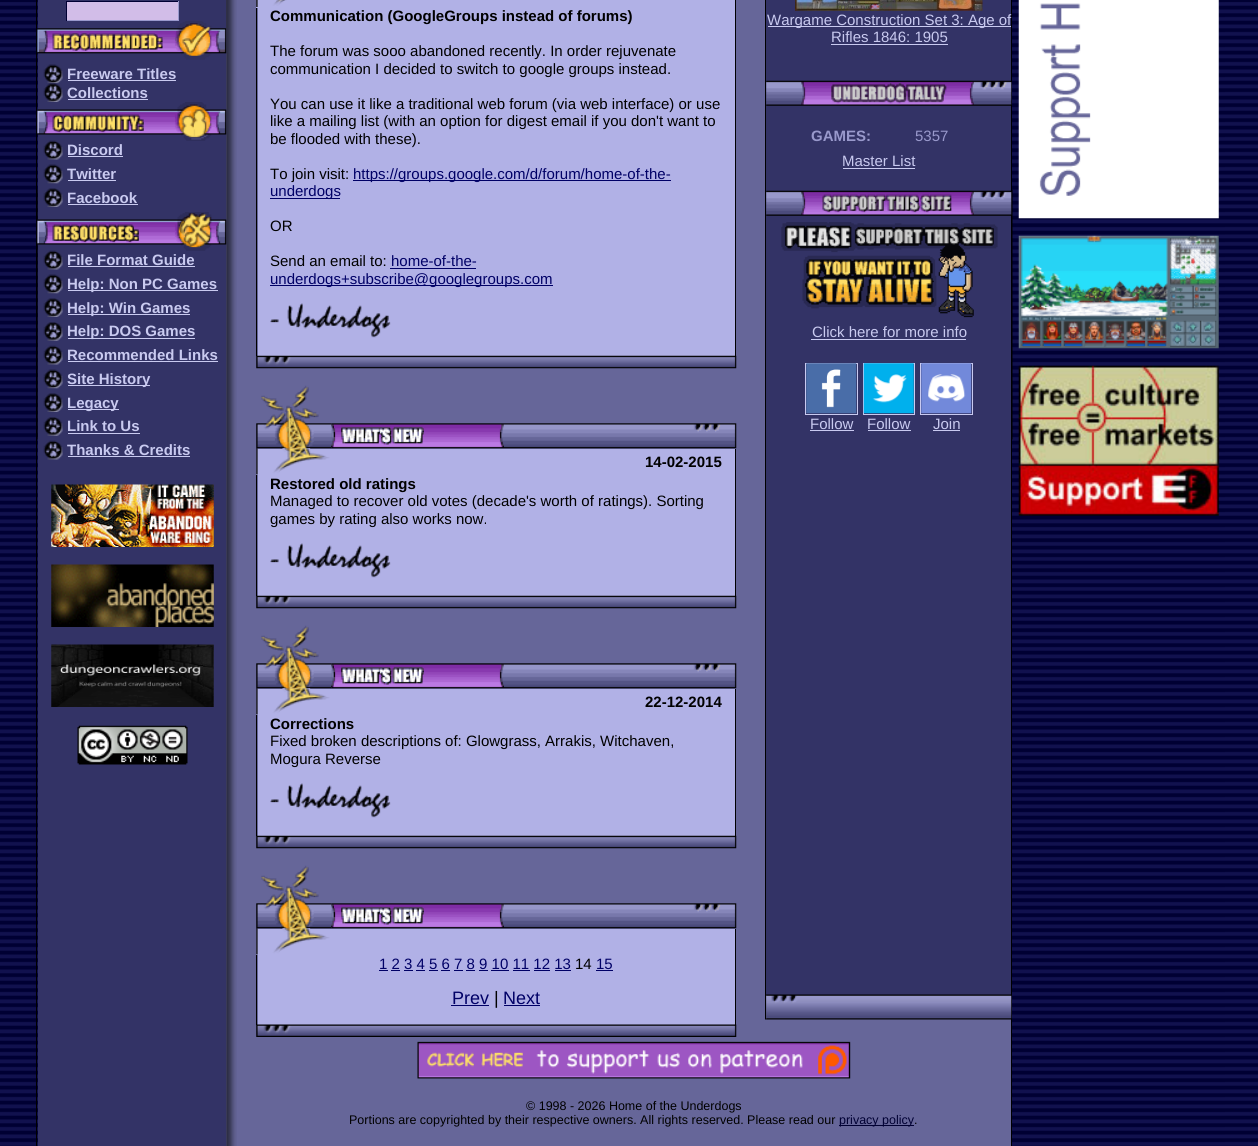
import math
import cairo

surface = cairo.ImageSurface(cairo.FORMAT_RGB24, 1258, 1146)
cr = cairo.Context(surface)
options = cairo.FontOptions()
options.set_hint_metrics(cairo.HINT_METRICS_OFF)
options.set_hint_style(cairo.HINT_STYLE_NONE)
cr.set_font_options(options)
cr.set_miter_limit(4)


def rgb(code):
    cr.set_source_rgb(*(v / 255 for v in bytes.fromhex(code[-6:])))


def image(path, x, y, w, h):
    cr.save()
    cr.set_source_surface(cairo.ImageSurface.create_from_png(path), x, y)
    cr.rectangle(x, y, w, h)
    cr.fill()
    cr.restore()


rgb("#ffffff")
cr.paint()
image("img/1.png", 37, 0, 976, 1146)
rgb("#000033")
cr.rectangle(0, 0, 36, 2)
cr.fill()
image("img/2.png", 0, 2, 36, 1144)
rgb("#000000")
cr.rectangle(36, 0, 1, 1146)
cr.fill()
image("img/3.png", 37, 189, 1, 251)
cr.rectangle(1011, 0, 1, 1146)
cr.fill()
image("img/3.png", 1012, 189, 1, 251)
rgb("#000033")
cr.rectangle(1013, 0, 245, 2)
cr.fill()
image("img/4.png", 1013, 2, 212, 1144)
image("img/5.png", 1018, 0, 201, 219)
image("img/6.png", 1018, 235, 201, 114)
image("img/7.png", 1018, 365, 201, 151)
image("img/8.png", 1225, 2, 33, 1144)
rgb("#666699")
cr.rectangle(226, 0, 785, 1146)
cr.fill()
image("img/9.png", 226, 0, 11, 1146)
rgb("#333366")
cr.rectangle(38, 0, 188, 1146)
cr.fill()
image("img/10.png", 37, 21, 190, 39)
cr.set_source_rgba(0.173, 0.173, 0.259, 0.75)
cr.rectangle(226, 0, 1, 29)
cr.fill()
rgb("#d2bde8")
cr.rectangle(67, 2, 111, 18)
cr.fill()
rgb("#000033")
cr.rectangle(66, 1, 113, 1)
cr.fill()
rgb("#9999cc")
cr.rectangle(178, 1, 1, 20)
cr.rectangle(66, 20, 113, 1)
cr.fill()
rgb("#000033")
cr.rectangle(66, 1, 1, 20)
cr.fill()
image("img/11.png", 43, 64, 20, 20)
rgb("#c9caf0")
cr.rectangle(68, 80, 108, 1)
cr.fill()
image("img/12.png", 43, 83, 20, 19)
cr.rectangle(68, 99, 80, 1)
cr.fill()
image("img/13.png", 37, 102, 190, 39)
image("img/14.png", 43, 140, 20, 20)
cr.rectangle(68, 156, 55, 1)
cr.fill()
image("img/11.png", 43, 164, 20, 20)
cr.rectangle(68, 180, 48, 1)
cr.fill()
image("img/15.png", 43, 188, 20, 19)
cr.rectangle(68, 204, 70, 1)
cr.fill()
image("img/16.png", 37, 212, 190, 39)
image("img/14.png", 43, 250, 20, 20)
cr.rectangle(68, 266, 127, 1)
cr.fill()
image("img/11.png", 43, 274, 20, 20)
cr.rectangle(68, 290, 150, 1)
cr.fill()
image("img/15.png", 43, 298, 20, 19)
cr.rectangle(68, 314, 122, 1)
cr.fill()
image("img/17.png", 43, 322, 20, 19)
cr.rectangle(68, 338, 127, 1)
cr.fill()
image("img/14.png", 43, 345, 20, 20)
cr.rectangle(68, 361, 150, 1)
cr.fill()
image("img/11.png", 43, 369, 20, 20)
cr.rectangle(68, 385, 82, 1)
cr.fill()
image("img/15.png", 43, 393, 20, 19)
cr.rectangle(68, 409, 51, 1)
cr.fill()
image("img/17.png", 43, 417, 20, 19)
cr.rectangle(68, 433, 72, 1)
cr.fill()
image("img/14.png", 43, 440, 20, 20)
cr.rectangle(68, 456, 122, 1)
cr.fill()
image("img/18.png", 51, 484, 163, 63)
image("img/19.png", 51, 564, 163, 63)
image("img/20.png", 51, 644, 163, 63)
image("img/21.png", 77, 725, 111, 40)
rgb("#b1b1e6")
cr.rectangle(256, 0, 479, 8)
cr.fill()
image("img/22.png", 256, 0, 31, 7)
for x, y, w, h, color in [
    (735, 0, 1, 356, "#000000"),
    (256, 8, 1, 348, "#000000"),
    (258, 8, 477, 348, "#b1b1e6"),
    (353, 180, 318, 1, "#000066"),
    (270, 198, 70, 1, "#000066"),
    (390, 268, 86, 1, "#000066"),
    (270, 285, 283, 1, "#000066"),
]:
    rgb(color)
    cr.rectangle(x, y, w, h)
    cr.fill()
image("img/23.png", 270, 303, 121, 35)
image("img/24.png", 256, 355, 481, 14)
image("img/25.png", 256, 385, 76, 64)
image("img/26.png", 331, 423, 406, 26)
rgb("#b1b1e6")
cr.rectangle(256, 449, 479, 26)
cr.fill()
image("img/27.png", 256, 448, 74, 27)
for x, y, w, h, color in [
    (735, 449, 1, 147, "#000000"),
    (256, 475, 1, 121, "#000000"),
    (258, 475, 477, 121, "#b1b1e6"),
]:
    rgb(color)
    cr.rectangle(x, y, w, h)
    cr.fill()
image("img/23.png", 270, 543, 121, 35)
image("img/24.png", 256, 595, 481, 14)
image("img/28.png", 256, 625, 76, 64)
image("img/29.png", 331, 663, 406, 26)
cr.rectangle(256, 689, 479, 26)
cr.fill()
image("img/27.png", 256, 688, 74, 27)
for x, y, w, h, color in [
    (735, 689, 1, 147, "#000000"),
    (256, 715, 1, 121, "#000000"),
    (258, 715, 477, 121, "#b1b1e6"),
]:
    rgb(color)
    cr.rectangle(x, y, w, h)
    cr.fill()
image("img/23.png", 270, 783, 121, 35)
image("img/24.png", 256, 835, 481, 14)
image("img/25.png", 256, 865, 76, 64)
image("img/26.png", 331, 903, 406, 26)
cr.rectangle(256, 929, 479, 26)
cr.fill()
image("img/27.png", 256, 928, 74, 27)
for x, y, w, h, color in [
    (735, 929, 1, 96, "#000000"),
    (256, 955, 1, 70, "#000000"),
    (258, 955, 477, 70, "#b1b1e6"),
    (379, 970, 9, 1, "#000066"),
    (596, 970, 17, 1, "#000066"),
    (391, 970, 9, 1, "#000066"),
    (404, 970, 9, 1, "#000066"),
    (416, 970, 9, 1, "#000066"),
    (429, 970, 9, 1, "#000066"),
    (441, 970, 9, 1, "#000066"),
    (454, 970, 9, 1, "#000066"),
    (466, 970, 9, 1, "#000066"),
    (479, 970, 9, 1, "#000066"),
    (491, 970, 18, 1, "#000066"),
    (513, 970, 17, 1, "#000066"),
    (534, 970, 16, 1, "#000066"),
    (555, 970, 16, 1, "#000066"),
    (451, 1005, 38, 1, "#000066"),
    (504, 1005, 36, 1, "#000066"),
]:
    rgb(color)
    cr.rectangle(x, y, w, h)
    cr.fill()
image("img/30.png", 256, 1024, 481, 13)
rgb("#000000")
cr.rectangle(765, 0, 1, 995)
cr.fill()
rgb("#333366")
cr.rectangle(766, 0, 245, 995)
cr.fill()
image("img/31.png", 795, 0, 188, 11)
rgb("#c9caf0")
cr.rectangle(768, 26, 243, 1)
cr.fill()
cr.rectangle(831, 44, 117, 1)
cr.fill()
image("img/32.png", 766, 80, 246, 26)
cr.rectangle(843, 168, 72, 1)
cr.fill()
image("img/33.png", 766, 190, 246, 26)
image("img/34.png", 781, 222, 217, 96)
cr.rectangle(811, 339, 155, 1)
cr.fill()
cr.rectangle(805.5, 363.5, 52, 51)
cr.set_line_width(1)
cr.stroke()
image("img/35.png", 806, 363, 51, 51)
cr.rectangle(810, 430, 44, 1)
cr.fill()
cr.rectangle(863.5, 363.5, 51, 51)
cr.stroke()
image("img/36.png", 863, 363, 51, 51)
cr.rectangle(868, 430, 43, 1)
cr.fill()
cr.rectangle(920.5, 363.5, 52, 51)
cr.stroke()
image("img/37.png", 921, 363, 51, 51)
cr.rectangle(933, 430, 27, 1)
cr.fill()
image("img/38.png", 765, 994, 2, 26)
image("img/39.png", 766, 994, 246, 26)
image("img/40.png", 417, 1041, 434, 38)
rgb("#000033")
cr.rectangle(839, 1125, 75, 1)
cr.fill()
cr.select_font_face("Liberation Sans", cairo.FONT_SLANT_NORMAL, cairo.FONT_WEIGHT_BOLD)
cr.set_font_size(15)
rgb("#c9caf0")
for x, y, s in [
    (67, 79, "Freeware Titles"),
    (67, 98, "Collections"),
    (67, 155, "Discord"),
    (67, 179, "Twitter"),
    (67, 203, "Facebook"),
    (67, 265, "File Format Guide"),
    (67, 289, "Help: Non PC Games"),
    (67, 313, "Help: Win Games"),
    (67, 336, "Help: DOS Games"),
    (67, 360, "Recommended Links"),
    (67, 384, "Site History"),
    (67, 408, "Legacy"),
    (67, 431, "Link to Us"),
    (67, 455, "Thanks & Credits"),
]:
    cr.move_to(x, y)
    cr.show_text(s)
rgb("#000000")
cr.move_to(270, 21)
cr.show_text("Communication (GoogleGroups instead of forums)")
cr.select_font_face("Liberation Sans")
for x, y, s in [
    (270, 56, "The forum was sooo abandoned recently. In order rejuvenate"),
    (270, 74, "communication I decided to switch to google groups instead."),
    (270, 109, "You can use it like a traditional web forum (via web interface) or use"),
    (270, 126, "like a mailing list (with an option for digest email if you don't want to"),
    (270, 144, "be flooded with these)."),
    (270, 179, "To join visit:"),
]:
    cr.move_to(x, y)
    cr.show_text(s)
rgb("#000066")
cr.move_to(353, 179)
cr.show_text("https://groups.google.com/d/forum/home-of-the-")
cr.move_to(270, 196)
cr.show_text("underdogs")
rgb("#000000")
cr.move_to(270, 231)
cr.show_text("OR")
cr.move_to(270, 266)
cr.show_text("Send an email to:")
rgb("#000066")
cr.move_to(391, 266)
cr.show_text("home-of-the-")
cr.move_to(270, 284)
cr.show_text("underdogs+subscribe@googlegroups.com")
cr.select_font_face("Liberation Sans", cairo.FONT_SLANT_NORMAL, cairo.FONT_WEIGHT_BOLD)
rgb("#000000")
cr.move_to(645, 467)
cr.show_text("14-02-2015")
cr.move_to(270, 489)
cr.show_text("Restored old ratings")
cr.select_font_face("Liberation Sans")
cr.move_to(270, 506)
cr.show_text("Managed to recover old votes (decade's worth of ratings). Sorting")
cr.move_to(270, 524)
cr.show_text("games by rating also works now.")
cr.select_font_face("Liberation Sans", cairo.FONT_SLANT_NORMAL, cairo.FONT_WEIGHT_BOLD)
cr.move_to(645, 707)
cr.show_text("22-12-2014")
cr.move_to(270, 729)
cr.show_text("Corrections")
cr.select_font_face("Liberation Sans")
cr.move_to(270, 746)
cr.show_text("Fixed broken descriptions of: Glowgrass, Arrakis, Witchaven,")
cr.move_to(270, 764)
cr.show_text("Mogura Reverse")
rgb("#000066")
cr.move_to(379, 969)
cr.show_text("1 2 3 4 5 6 7 8 9 10 11 12 13")
rgb("#000000")
cr.move_to(575, 969)
cr.show_text("14")
rgb("#000066")
cr.move_to(596, 969)
cr.show_text("15")
cr.set_font_size(18)
cr.move_to(452, 1004)
cr.show_text("Prev")
rgb("#000000")
cr.move_to(494, 1004)
cr.show_text("|")
rgb("#000066")
cr.move_to(503, 1004)
cr.show_text("Next")
cr.set_font_size(15)
rgb("#c9caf0")
cr.move_to(767, 25)
cr.show_text("Wargame Construction Set 3: Age of")
cr.move_to(831, 42)
cr.show_text("Rifles 1846: 1905")
cr.select_font_face("Liberation Sans", cairo.FONT_SLANT_NORMAL, cairo.FONT_WEIGHT_BOLD)
rgb("#9999cc")
cr.move_to(811, 141)
cr.show_text("GAMES:")
cr.select_font_face("Liberation Sans")
cr.move_to(915, 141)
cr.show_text("5357")
rgb("#c9caf0")
for x, y, s in [
    (842, 166, "Master List"),
    (812, 337, "Click here for more info"),
    (810, 429, "Follow"),
    (867, 429, "Follow"),
    (933, 429, "Join"),
]:
    cr.move_to(x, y)
    cr.show_text(s)
cr.set_font_size(12.5)
rgb("#000000")
cr.move_to(526, 1110)
cr.show_text("© 1998 - 2026 Home of the Underdogs")
cr.move_to(349, 1124)
cr.show_text("Portions are copyrighted by their respective owners. All rights reserved. Please read our")
rgb("#000033")
cr.move_to(839, 1124)
cr.show_text("privacy policy")
rgb("#000000")
cr.move_to(914, 1124)
cr.show_text(".")
surface.write_to_png("page.png")
